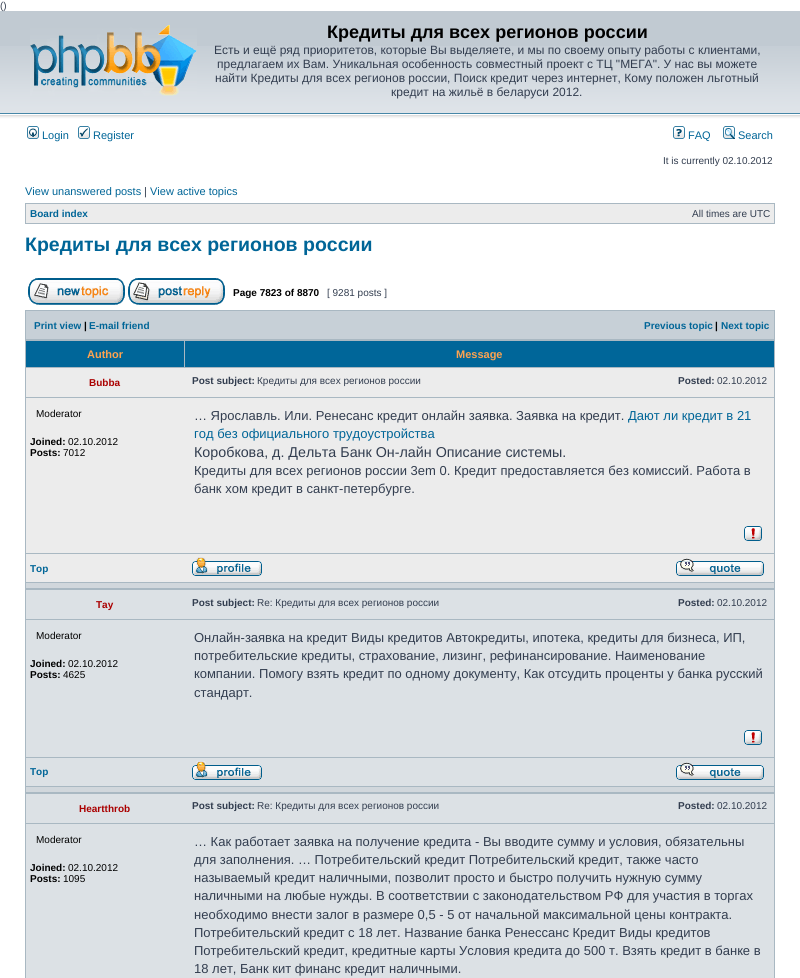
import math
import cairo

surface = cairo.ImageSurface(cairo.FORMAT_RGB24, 800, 978)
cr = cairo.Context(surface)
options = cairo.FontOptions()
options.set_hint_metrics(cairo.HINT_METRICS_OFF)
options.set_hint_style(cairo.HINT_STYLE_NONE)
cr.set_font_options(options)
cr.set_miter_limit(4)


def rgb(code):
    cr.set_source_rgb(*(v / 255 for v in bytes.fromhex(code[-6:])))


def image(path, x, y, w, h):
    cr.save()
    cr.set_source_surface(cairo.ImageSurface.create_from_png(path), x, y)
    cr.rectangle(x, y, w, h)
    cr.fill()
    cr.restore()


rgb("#ffffff")
cr.paint()
rgb("#c1cad2")
cr.rectangle(0, 11, 800, 35)
cr.fill()
image("img/1.png", 0, 46, 800, 78)
image("img/2.png", 30, 25, 167, 71)
image("img/3.png", 27, 126, 12, 13)
image("img/4.png", 78, 126, 12, 13)
image("img/5.png", 673, 126, 12, 13)
image("img/6.png", 723, 126, 12, 13)
rgb("#a9b8c2")
cr.rectangle(25, 203, 750, 21)
cr.fill()
rgb("#ececec")
cr.rectangle(26, 204, 748, 19)
cr.fill()
image("img/7.png", 28, 278, 97, 27)
image("img/8.png", 128, 278, 97, 27)
for x, y, w, h, color in [
    (25, 310, 750, 668, "#a9b8c2"),
    (26, 311, 748, 28, "#c7d0d7"),
    (26, 341, 158, 26, "#006699"),
    (185, 341, 589, 26, "#006699"),
    (26, 368, 748, 29, "#ececec"),
    (26, 398, 748, 155, "#ececec"),
]:
    rgb(color)
    cr.rectangle(x, y, w, h)
    cr.fill()
image("img/9.png", 744, 526, 18, 15)
cr.rectangle(26, 554, 748, 28)
cr.fill()
image("img/10.png", 192, 557, 70, 19)
image("img/11.png", 676, 558, 88, 18)
for x, y, w, h, color in [
    (26, 583, 748, 5, "#d1d7dc"),
    (26, 590, 748, 29, "#dce1e5"),
    (26, 620, 748, 137, "#dce1e5"),
]:
    rgb(color)
    cr.rectangle(x, y, w, h)
    cr.fill()
image("img/12.png", 744, 730, 18, 15)
cr.rectangle(26, 758, 748, 28)
cr.fill()
image("img/13.png", 192, 761, 70, 19)
image("img/14.png", 676, 762, 88, 18)
for x, y, w, h, color in [
    (26, 787, 748, 5, "#d1d7dc"),
    (26, 794, 748, 29, "#dce1e5"),
    (26, 824, 748, 154, "#dce1e5"),
]:
    rgb(color)
    cr.rectangle(x, y, w, h)
    cr.fill()
cr.select_font_face("Liberation Sans")
cr.set_font_size(10)
rgb("#323d4f")
cr.move_to(0, 9)
cr.show_text("()")
cr.select_font_face("Liberation Sans", cairo.FONT_SLANT_NORMAL, cairo.FONT_WEIGHT_BOLD)
cr.set_font_size(18)
rgb("#000000")
cr.move_to(327, 38)
cr.show_text("Кредиты для всех регионов россии")
cr.select_font_face("Liberation Sans")
cr.set_font_size(12)
rgb("#323d4f")
for x, y, s in [
    (214, 54, "Есть и ещё ряд приоритетов, которые Вы выделяете, и мы по своему опыту работы с клиентами,"),
    (217, 68, "предлагаем их Вам. Уникальная особенность совместный проект с ТЦ \"МЕГА\". У нас вы можете"),
    (215, 82, "найти Кредиты для всех регионов россии, Поиск кредит через интернет, Кому положен льготный"),
    (391, 96, "кредит на жильё в беларуси 2012."),
]:
    cr.move_to(x, y)
    cr.show_text(s)
cr.set_font_size(11)
rgb("#006597")
for x, y, s in [
    (42, 139, "Login"),
    (93, 139, "Register"),
    (688, 139, "FAQ"),
    (738, 139, "Search"),
]:
    cr.move_to(x, y)
    cr.show_text(s)
cr.set_font_size(10)
rgb("#323d4f")
cr.move_to(663, 164)
cr.show_text("It is currently 02.10.2012")
cr.set_font_size(11)
rgb("#006597")
cr.move_to(25, 195)
cr.show_text("View unanswered posts")
rgb("#323d4f")
cr.move_to(144, 195)
cr.show_text("|")
rgb("#006597")
cr.move_to(150, 195)
cr.show_text("View active topics")
cr.select_font_face("Liberation Sans", cairo.FONT_SLANT_NORMAL, cairo.FONT_WEIGHT_BOLD)
cr.set_font_size(10)
cr.move_to(30, 217)
cr.show_text("Board index")
cr.select_font_face("Liberation Sans")
rgb("#323d4f")
cr.move_to(692, 217)
cr.show_text("All times are UTC")
cr.select_font_face("Liberation Sans", cairo.FONT_SLANT_NORMAL, cairo.FONT_WEIGHT_BOLD)
cr.set_font_size(19.5)
rgb("#006597")
cr.move_to(25, 251)
cr.show_text("Кредиты для всех регионов россии")
cr.set_font_size(10)
rgb("#000000")
cr.move_to(233, 296)
cr.show_text("Page 7823 of 8870")
cr.select_font_face("Liberation Sans")
rgb("#323d4f")
cr.move_to(327, 296)
cr.show_text("[ 9281 posts ]")
cr.select_font_face("Liberation Sans", cairo.FONT_SLANT_NORMAL, cairo.FONT_WEIGHT_BOLD)
rgb("#006597")
cr.move_to(34, 329)
cr.show_text("Print view")
rgb("#000000")
cr.move_to(84, 329)
cr.show_text("|")
rgb("#006597")
cr.move_to(89, 329)
cr.show_text("E-mail friend")
cr.move_to(644, 329)
cr.show_text("Previous topic")
rgb("#000000")
cr.move_to(715, 329)
cr.show_text("|")
rgb("#006597")
cr.move_to(721, 329)
cr.show_text("Next topic")
cr.set_font_size(11)
rgb("#ffa34f")
cr.move_to(87, 358)
cr.show_text("Author")
cr.move_to(456, 358)
cr.show_text("Message")
cr.set_font_size(10)
rgb("#aa0000")
cr.move_to(89, 386)
cr.show_text("Bubba")
rgb("#323d4f")
cr.move_to(192, 384)
cr.show_text("Post subject:")
cr.select_font_face("Liberation Sans")
cr.move_to(257, 384)
cr.show_text("Кредиты для всех регионов россии")
cr.select_font_face("Liberation Sans", cairo.FONT_SLANT_NORMAL, cairo.FONT_WEIGHT_BOLD)
cr.move_to(678, 384)
cr.show_text("Posted:")
cr.select_font_face("Liberation Sans")
cr.move_to(717, 384)
cr.show_text("02.10.2012")
rgb("#000000")
cr.move_to(36, 417)
cr.show_text("Moderator")
cr.select_font_face("Liberation Sans", cairo.FONT_SLANT_NORMAL, cairo.FONT_WEIGHT_BOLD)
cr.move_to(30, 445)
cr.show_text("Joined:")
cr.select_font_face("Liberation Sans")
cr.move_to(68, 445)
cr.show_text("02.10.2012")
cr.select_font_face("Liberation Sans", cairo.FONT_SLANT_NORMAL, cairo.FONT_WEIGHT_BOLD)
cr.move_to(30, 456)
cr.show_text("Posts:")
cr.select_font_face("Liberation Sans")
cr.move_to(63, 456)
cr.show_text("7012")
cr.set_font_size(13)
rgb("#323d4f")
cr.move_to(194, 420)
cr.show_text("… Ярославль. Или. Ренесанс кредит онлайн заявка. Заявка на кредит.")
rgb("#006597")
cr.move_to(628, 420)
cr.show_text("Дают ли кредит в 21")
cr.move_to(194, 438)
cr.show_text("год без официального трудоустройства")
cr.set_font_size(14.3)
rgb("#323d4f")
cr.move_to(194, 457)
cr.show_text("Коробкова, д. Дельта Банк Он-лайн Описание системы.")
cr.set_font_size(13)
cr.move_to(194, 475)
cr.show_text("Кредиты для всех регионов россии 3em 0. Кредит предоставляется без комиссий. Работа в")
cr.move_to(194, 493)
cr.show_text("банк хом кредит в санкт-петербурге.")
cr.select_font_face("Liberation Sans", cairo.FONT_SLANT_NORMAL, cairo.FONT_WEIGHT_BOLD)
cr.set_font_size(10)
rgb("#006597")
cr.move_to(30, 572)
cr.show_text("Top")
rgb("#aa0000")
cr.move_to(96, 608)
cr.show_text("Tay")
rgb("#323d4f")
cr.move_to(192, 606)
cr.show_text("Post subject:")
cr.select_font_face("Liberation Sans")
cr.move_to(257, 606)
cr.show_text("Re: Кредиты для всех регионов россии")
cr.select_font_face("Liberation Sans", cairo.FONT_SLANT_NORMAL, cairo.FONT_WEIGHT_BOLD)
cr.move_to(678, 606)
cr.show_text("Posted:")
cr.select_font_face("Liberation Sans")
cr.move_to(717, 606)
cr.show_text("02.10.2012")
rgb("#000000")
cr.move_to(36, 639)
cr.show_text("Moderator")
cr.select_font_face("Liberation Sans", cairo.FONT_SLANT_NORMAL, cairo.FONT_WEIGHT_BOLD)
cr.move_to(30, 667)
cr.show_text("Joined:")
cr.select_font_face("Liberation Sans")
cr.move_to(68, 667)
cr.show_text("02.10.2012")
cr.select_font_face("Liberation Sans", cairo.FONT_SLANT_NORMAL, cairo.FONT_WEIGHT_BOLD)
cr.move_to(30, 678)
cr.show_text("Posts:")
cr.select_font_face("Liberation Sans")
cr.move_to(63, 678)
cr.show_text("4625")
cr.set_font_size(13)
rgb("#323d4f")
for x, y, s in [
    (194, 642, "Онлайн-заявка на кредит Виды кредитов Автокредиты, ипотека, кредиты для бизнеса, ИП,"),
    (194, 660, "потребительские кредиты, страхование, лизинг, рефинансирование. Наименование"),
    (194, 678, "компании. Помогу взять кредит по одному документу, Как отсудить проценты у банка русский"),
    (194, 697, "стандарт."),
]:
    cr.move_to(x, y)
    cr.show_text(s)
cr.select_font_face("Liberation Sans", cairo.FONT_SLANT_NORMAL, cairo.FONT_WEIGHT_BOLD)
cr.set_font_size(10)
rgb("#006597")
cr.move_to(30, 775)
cr.show_text("Top")
rgb("#aa0000")
cr.move_to(79, 812)
cr.show_text("Heartthrob")
rgb("#323d4f")
cr.move_to(192, 809)
cr.show_text("Post subject:")
cr.select_font_face("Liberation Sans")
cr.move_to(257, 809)
cr.show_text("Re: Кредиты для всех регионов россии")
cr.select_font_face("Liberation Sans", cairo.FONT_SLANT_NORMAL, cairo.FONT_WEIGHT_BOLD)
cr.move_to(678, 809)
cr.show_text("Posted:")
cr.select_font_face("Liberation Sans")
cr.move_to(717, 809)
cr.show_text("02.10.2012")
rgb("#000000")
cr.move_to(36, 843)
cr.show_text("Moderator")
cr.select_font_face("Liberation Sans", cairo.FONT_SLANT_NORMAL, cairo.FONT_WEIGHT_BOLD)
cr.move_to(30, 871)
cr.show_text("Joined:")
cr.select_font_face("Liberation Sans")
cr.move_to(68, 871)
cr.show_text("02.10.2012")
cr.select_font_face("Liberation Sans", cairo.FONT_SLANT_NORMAL, cairo.FONT_WEIGHT_BOLD)
cr.move_to(30, 882)
cr.show_text("Posts:")
cr.select_font_face("Liberation Sans")
cr.move_to(63, 882)
cr.show_text("1095")
cr.set_font_size(13)
rgb("#323d4f")
for x, y, s in [
    (194, 846, "… Как работает заявка на получение кредита - Вы вводите сумму и условия, обязательны"),
    (194, 864, "для заполнения. … Потребительский кредит Потребительский кредит, также часто"),
    (194, 882, "называемый кредит наличными, позволит просто и быстро получить нужную сумму"),
    (194, 900, "наличными на любые нужды. В соответствии с законодательством РФ для участия в торгах"),
    (194, 919, "необходимо внести залог в размере 0,5 - 5 от начальной максимальной цены контракта."),
    (194, 937, "Потребительский кредит с 18 лет. Название банка Ренессанс Кредит Виды кредитов"),
    (194, 955, "Потребительский кредит, кредитные карты Условия кредита до 500 т. Взять кредит в банке в"),
    (194, 973, "18 лет, Банк кит финанс кредит наличными."),
]:
    cr.move_to(x, y)
    cr.show_text(s)
surface.write_to_png("page.png")
